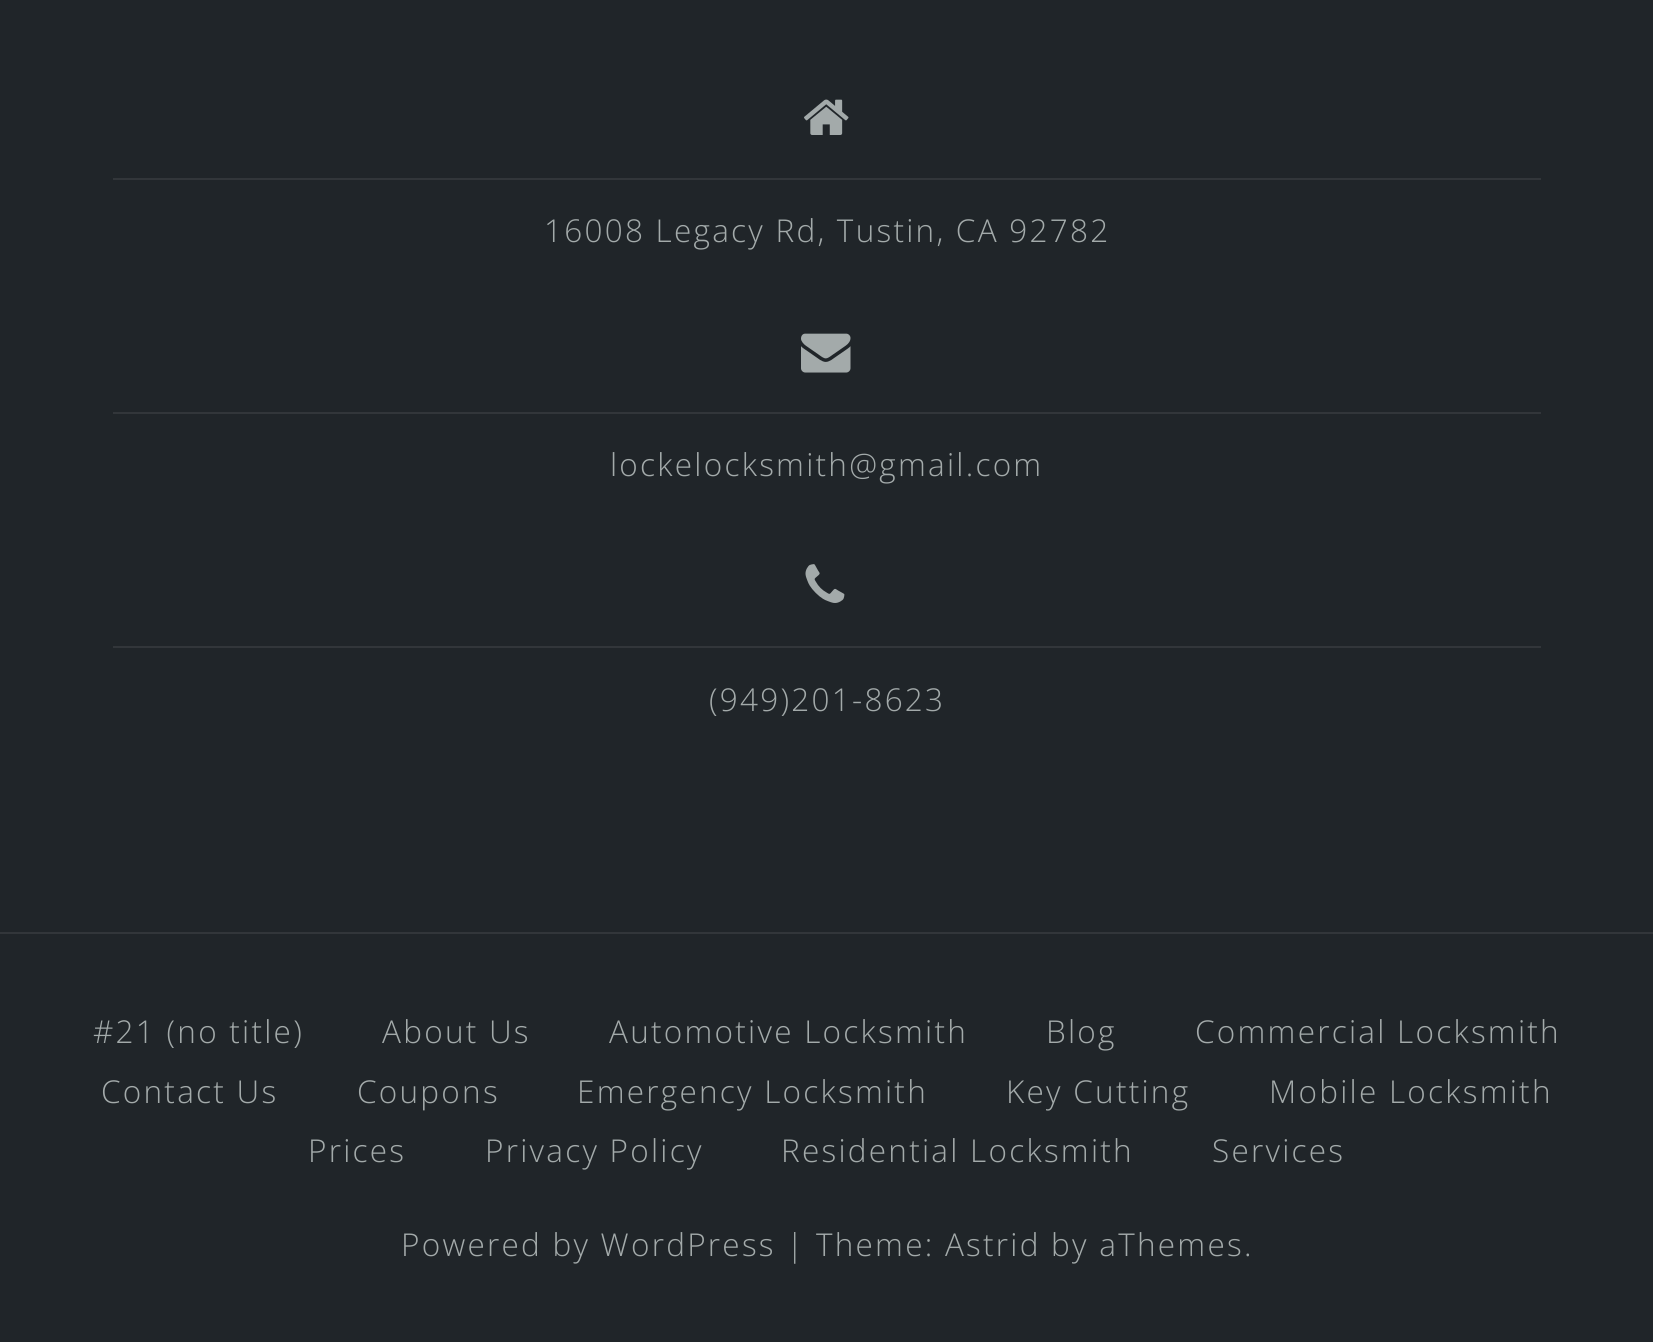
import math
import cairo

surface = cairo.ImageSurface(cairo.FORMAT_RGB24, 1653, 1342)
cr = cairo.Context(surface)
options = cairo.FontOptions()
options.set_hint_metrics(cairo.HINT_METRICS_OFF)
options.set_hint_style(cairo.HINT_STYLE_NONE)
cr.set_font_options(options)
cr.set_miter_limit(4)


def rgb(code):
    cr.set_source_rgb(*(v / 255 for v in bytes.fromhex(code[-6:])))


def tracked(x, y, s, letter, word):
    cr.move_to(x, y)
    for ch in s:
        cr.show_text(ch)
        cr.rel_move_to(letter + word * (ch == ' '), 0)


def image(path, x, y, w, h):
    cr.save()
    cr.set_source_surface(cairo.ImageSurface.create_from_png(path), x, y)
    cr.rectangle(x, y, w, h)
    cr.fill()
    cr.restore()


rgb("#202529")
cr.paint()
rgb("#32363a")
cr.rectangle(0, 932, 1653, 2)
cr.fill()
image("img/1.png", 804, 99, 45, 36)
cr.rectangle(113, 178, 1428, 2)
cr.fill()
image("img/2.png", 801, 333, 50, 40)
cr.rectangle(113, 412, 1428, 2)
cr.fill()
image("img/3.png", 805, 564, 40, 39)
cr.rectangle(113, 646, 1428, 2)
cr.fill()
cr.select_font_face("Open Sans Light")
cr.set_font_size(31.5)
rgb("#a3aaaa")
for x, y, s in [
    (544, 242, "16008 Legacy Rd, Tustin, CA 92782"),
    (610, 476, "lockelocksmith@gmail.com"),
    (709, 711, "(949)201-8623"),
    (93, 1043, "#21 (no title)"),
    (382, 1043, "About Us"),
    (609, 1043, "Automotive Locksmith"),
    (1046, 1043, "Blog"),
    (1195, 1043, "Commercial Locksmith"),
    (101, 1103, "Contact Us"),
    (357, 1103, "Coupons"),
    (577, 1103, "Emergency Locksmith"),
    (1006, 1103, "Key Cutting"),
    (1269, 1103, "Mobile Locksmith"),
    (308, 1162, "Prices"),
    (485, 1162, "Privacy Policy"),
    (781, 1162, "Residential Locksmith"),
    (1212, 1162, "Services"),
    (401, 1256, "Powered by WordPress | Theme: Astrid by aThemes."),
]:
    tracked(x, y, s, 2.25, 0)
surface.write_to_png("page.png")
